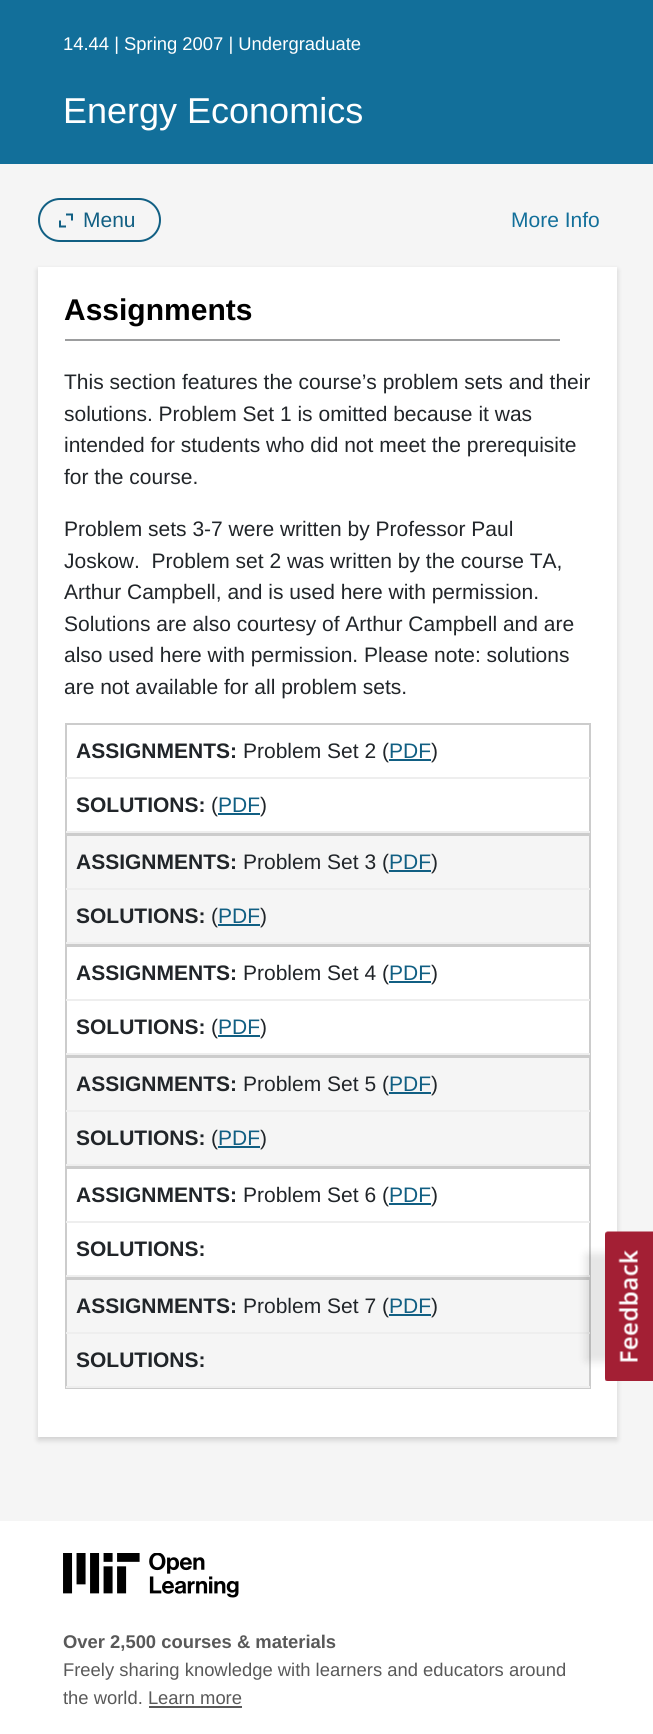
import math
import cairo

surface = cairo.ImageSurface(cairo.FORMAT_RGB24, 653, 1734)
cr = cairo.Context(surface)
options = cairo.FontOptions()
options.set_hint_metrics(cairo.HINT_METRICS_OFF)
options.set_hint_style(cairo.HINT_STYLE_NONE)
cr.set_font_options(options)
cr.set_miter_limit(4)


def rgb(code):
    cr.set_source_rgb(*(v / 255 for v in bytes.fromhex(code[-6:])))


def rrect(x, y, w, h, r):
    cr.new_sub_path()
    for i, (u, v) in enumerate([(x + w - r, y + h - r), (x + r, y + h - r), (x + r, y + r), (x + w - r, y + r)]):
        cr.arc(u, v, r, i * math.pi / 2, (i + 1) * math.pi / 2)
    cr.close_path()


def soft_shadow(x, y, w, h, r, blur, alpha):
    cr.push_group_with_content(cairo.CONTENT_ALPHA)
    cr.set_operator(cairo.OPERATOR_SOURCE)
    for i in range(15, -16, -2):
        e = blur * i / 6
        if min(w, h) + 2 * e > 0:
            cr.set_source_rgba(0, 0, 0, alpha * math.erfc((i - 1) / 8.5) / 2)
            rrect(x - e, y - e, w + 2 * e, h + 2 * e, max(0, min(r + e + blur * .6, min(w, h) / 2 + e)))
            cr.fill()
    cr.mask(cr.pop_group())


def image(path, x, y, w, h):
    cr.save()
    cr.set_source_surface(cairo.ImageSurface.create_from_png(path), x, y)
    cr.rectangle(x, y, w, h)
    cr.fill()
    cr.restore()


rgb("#f5f5f5")
cr.paint()
rgb("#126f9a")
cr.rectangle(0, 0, 653, 164)
cr.fill()
rrect(39, 199, 121, 42, 21)
rgb("#115f83")
cr.stroke()
image("img/1.png", 59, 213, 14, 15)
rgb("#000000")
soft_shadow(38, 270, 579, 1170, 0, 3, 0.16)
rgb("#ffffff")
cr.rectangle(38, 267, 579, 1170)
cr.fill()
rgb("#9c9d9e")
cr.rectangle(65, 339, 495, 2)
cr.fill()
cr.rectangle(66, 724, 524, 109)
rgb("#cccccc")
cr.stroke()
for x, y, w, h, color in [
    (66, 777, 524, 2, "#eeeeee"),
    (389, 759, 42, 2, "#115f83"),
    (66, 831, 524, 2, "#eeeeee"),
    (218, 813, 42, 2, "#115f83"),
    (67, 836, 522, 106, "#f5f5f5"),
]:
    rgb(color)
    cr.rectangle(x, y, w, h)
    cr.fill()
cr.rectangle(66, 835, 524, 109)
rgb("#cccccc")
cr.stroke()
for x, y, w, h, color in [
    (66, 888, 524, 2, "#eeeeee"),
    (389, 870, 42, 2, "#115f83"),
    (66, 942, 524, 2, "#eeeeee"),
    (218, 924, 42, 2, "#115f83"),
]:
    rgb(color)
    cr.rectangle(x, y, w, h)
    cr.fill()
cr.rectangle(66, 946, 524, 109)
rgb("#cccccc")
cr.stroke()
for x, y, w, h, color in [
    (66, 999, 524, 2, "#eeeeee"),
    (389, 981, 42, 2, "#115f83"),
    (66, 1053, 524, 2, "#eeeeee"),
    (218, 1035, 42, 2, "#115f83"),
    (67, 1058, 522, 106, "#f5f5f5"),
]:
    rgb(color)
    cr.rectangle(x, y, w, h)
    cr.fill()
cr.rectangle(66, 1057, 524, 109)
rgb("#cccccc")
cr.stroke()
for x, y, w, h, color in [
    (66, 1110, 524, 2, "#eeeeee"),
    (389, 1092, 42, 2, "#115f83"),
    (66, 1164, 524, 2, "#eeeeee"),
    (218, 1146, 42, 2, "#115f83"),
]:
    rgb(color)
    cr.rectangle(x, y, w, h)
    cr.fill()
cr.rectangle(66, 1168, 524, 109)
rgb("#cccccc")
cr.stroke()
for x, y, w, h, color in [
    (66, 1221, 524, 2, "#eeeeee"),
    (389, 1203, 42, 2, "#115f83"),
    (66, 1275, 524, 2, "#eeeeee"),
    (67, 1280, 522, 106, "#f5f5f5"),
]:
    rgb(color)
    cr.rectangle(x, y, w, h)
    cr.fill()
cr.rectangle(66, 1279, 524, 109)
rgb("#cccccc")
cr.stroke()
for x, y, w, h, color in [
    (66, 1332, 524, 2, "#eeeeee"),
    (389, 1314, 42, 2, "#115f83"),
    (66, 1386, 524, 2, "#eeeeee"),
    (0, 1521, 653, 213, "#ffffff"),
]:
    rgb(color)
    cr.rectangle(x, y, w, h)
    cr.fill()
image("img/2.png", 63, 1553, 176, 45)
rgb("#595959")
cr.rectangle(149, 1706, 93, 2)
cr.fill()
rgb("#000000")
soft_shadow(585, 1253, 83, 109, 3, 4, 0.1)
image("img/3.png", 605, 1231, 48, 150)
cr.select_font_face("Liberation Sans")
cr.set_font_size(18.4)
rgb("#ffffff")
cr.move_to(63, 50)
cr.show_text("14.44 | Spring 2007 | Undergraduate")
cr.set_font_size(36)
cr.move_to(63, 123)
cr.show_text("Energy Economics")
cr.set_font_size(21)
rgb("#115f83")
cr.move_to(83, 227)
cr.show_text("Menu")
rgb("#126f9a")
cr.move_to(511, 227)
cr.show_text("More Info")
cr.select_font_face("Liberation Sans", cairo.FONT_SLANT_NORMAL, cairo.FONT_WEIGHT_BOLD)
cr.set_font_size(30)
rgb("#000000")
cr.move_to(64, 320)
cr.show_text("Assignments")
cr.select_font_face("Liberation Sans")
cr.set_font_size(21)
rgb("#212529")
for x, y, s in [
    (64, 389, "This section features the course’s problem sets and their"),
    (64, 421, "solutions. Problem Set 1 is omitted because it was"),
    (64, 452, "intended for students who did not meet the prerequisite"),
    (64, 484, "for the course."),
    (64, 536, "Problem sets 3-7 were written by Professor Paul"),
    (64, 568, "Joskow.  Problem set 2 was written by the course TA,"),
    (64, 599, "Arthur Campbell, and is used here with permission."),
    (64, 631, "Solutions are also courtesy of Arthur Campbell and are"),
    (64, 662, "also used here with permission. Please note: solutions"),
    (64, 694, "are not available for all problem sets."),
]:
    cr.move_to(x, y)
    cr.show_text(s)
cr.select_font_face("Liberation Sans", cairo.FONT_SLANT_NORMAL, cairo.FONT_WEIGHT_BOLD)
cr.move_to(76, 758)
cr.show_text("ASSIGNMENTS:")
cr.select_font_face("Liberation Sans")
cr.move_to(243, 758)
cr.show_text("Problem Set 2 (")
rgb("#115f83")
cr.move_to(389, 758)
cr.show_text("PDF")
rgb("#212529")
cr.move_to(431, 758)
cr.show_text(")")
cr.select_font_face("Liberation Sans", cairo.FONT_SLANT_NORMAL, cairo.FONT_WEIGHT_BOLD)
cr.move_to(76, 812)
cr.show_text("SOLUTIONS:")
cr.select_font_face("Liberation Sans")
cr.move_to(211, 812)
cr.show_text("(")
rgb("#115f83")
cr.move_to(218, 812)
cr.show_text("PDF")
rgb("#212529")
cr.move_to(260, 812)
cr.show_text(")")
cr.select_font_face("Liberation Sans", cairo.FONT_SLANT_NORMAL, cairo.FONT_WEIGHT_BOLD)
cr.move_to(76, 869)
cr.show_text("ASSIGNMENTS:")
cr.select_font_face("Liberation Sans")
cr.move_to(243, 869)
cr.show_text("Problem Set 3 (")
rgb("#115f83")
cr.move_to(389, 869)
cr.show_text("PDF")
rgb("#212529")
cr.move_to(431, 869)
cr.show_text(")")
cr.select_font_face("Liberation Sans", cairo.FONT_SLANT_NORMAL, cairo.FONT_WEIGHT_BOLD)
cr.move_to(76, 923)
cr.show_text("SOLUTIONS:")
cr.select_font_face("Liberation Sans")
cr.move_to(211, 923)
cr.show_text("(")
rgb("#115f83")
cr.move_to(218, 923)
cr.show_text("PDF")
rgb("#212529")
cr.move_to(260, 923)
cr.show_text(")")
cr.select_font_face("Liberation Sans", cairo.FONT_SLANT_NORMAL, cairo.FONT_WEIGHT_BOLD)
cr.move_to(76, 980)
cr.show_text("ASSIGNMENTS:")
cr.select_font_face("Liberation Sans")
cr.move_to(243, 980)
cr.show_text("Problem Set 4 (")
rgb("#115f83")
cr.move_to(389, 980)
cr.show_text("PDF")
rgb("#212529")
cr.move_to(431, 980)
cr.show_text(")")
cr.select_font_face("Liberation Sans", cairo.FONT_SLANT_NORMAL, cairo.FONT_WEIGHT_BOLD)
cr.move_to(76, 1034)
cr.show_text("SOLUTIONS:")
cr.select_font_face("Liberation Sans")
cr.move_to(211, 1034)
cr.show_text("(")
rgb("#115f83")
cr.move_to(218, 1034)
cr.show_text("PDF")
rgb("#212529")
cr.move_to(260, 1034)
cr.show_text(")")
cr.select_font_face("Liberation Sans", cairo.FONT_SLANT_NORMAL, cairo.FONT_WEIGHT_BOLD)
cr.move_to(76, 1091)
cr.show_text("ASSIGNMENTS:")
cr.select_font_face("Liberation Sans")
cr.move_to(243, 1091)
cr.show_text("Problem Set 5 (")
rgb("#115f83")
cr.move_to(389, 1091)
cr.show_text("PDF")
rgb("#212529")
cr.move_to(431, 1091)
cr.show_text(")")
cr.select_font_face("Liberation Sans", cairo.FONT_SLANT_NORMAL, cairo.FONT_WEIGHT_BOLD)
cr.move_to(76, 1145)
cr.show_text("SOLUTIONS:")
cr.select_font_face("Liberation Sans")
cr.move_to(211, 1145)
cr.show_text("(")
rgb("#115f83")
cr.move_to(218, 1145)
cr.show_text("PDF")
rgb("#212529")
cr.move_to(260, 1145)
cr.show_text(")")
cr.select_font_face("Liberation Sans", cairo.FONT_SLANT_NORMAL, cairo.FONT_WEIGHT_BOLD)
cr.move_to(76, 1202)
cr.show_text("ASSIGNMENTS:")
cr.select_font_face("Liberation Sans")
cr.move_to(243, 1202)
cr.show_text("Problem Set 6 (")
rgb("#115f83")
cr.move_to(389, 1202)
cr.show_text("PDF")
rgb("#212529")
cr.move_to(431, 1202)
cr.show_text(")")
cr.select_font_face("Liberation Sans", cairo.FONT_SLANT_NORMAL, cairo.FONT_WEIGHT_BOLD)
cr.move_to(76, 1256)
cr.show_text("SOLUTIONS:")
cr.move_to(76, 1313)
cr.show_text("ASSIGNMENTS:")
cr.select_font_face("Liberation Sans")
cr.move_to(243, 1313)
cr.show_text("Problem Set 7 (")
rgb("#115f83")
cr.move_to(389, 1313)
cr.show_text("PDF")
rgb("#212529")
cr.move_to(431, 1313)
cr.show_text(")")
cr.select_font_face("Liberation Sans", cairo.FONT_SLANT_NORMAL, cairo.FONT_WEIGHT_BOLD)
cr.move_to(76, 1367)
cr.show_text("SOLUTIONS:")
cr.set_font_size(18.4)
rgb("#595959")
cr.move_to(63, 1648)
cr.show_text("Over 2,500 courses & materials")
cr.select_font_face("Liberation Sans")
cr.move_to(63, 1676)
cr.show_text("Freely sharing knowledge with learners and educators around")
cr.move_to(63, 1704)
cr.show_text("the world. Learn more")
surface.write_to_png("page.png")
